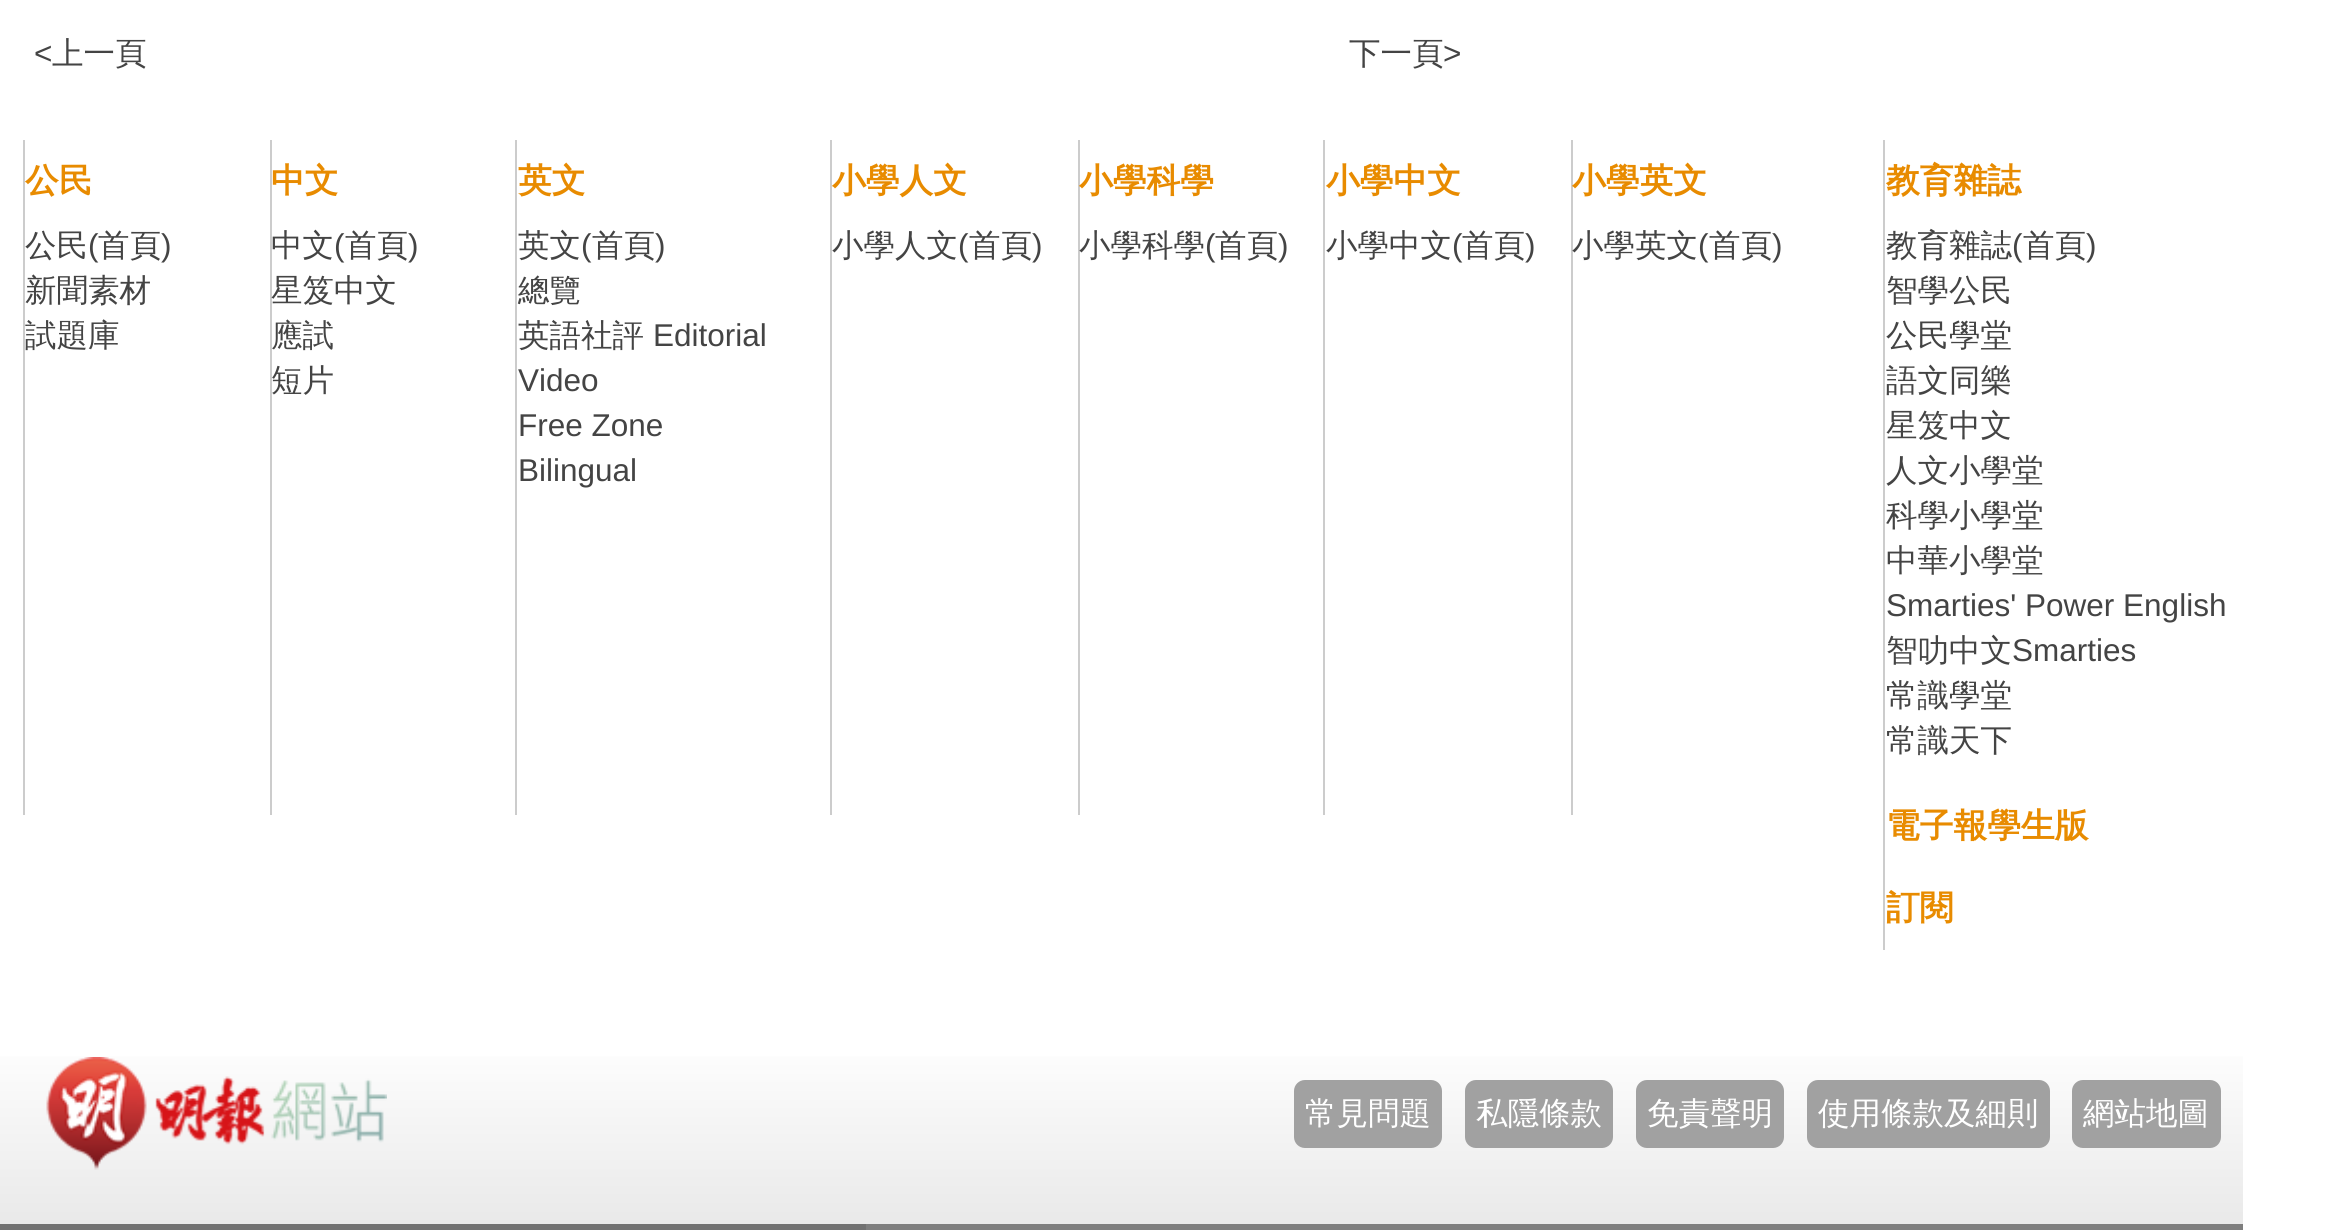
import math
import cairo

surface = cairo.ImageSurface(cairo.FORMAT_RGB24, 2340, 1230)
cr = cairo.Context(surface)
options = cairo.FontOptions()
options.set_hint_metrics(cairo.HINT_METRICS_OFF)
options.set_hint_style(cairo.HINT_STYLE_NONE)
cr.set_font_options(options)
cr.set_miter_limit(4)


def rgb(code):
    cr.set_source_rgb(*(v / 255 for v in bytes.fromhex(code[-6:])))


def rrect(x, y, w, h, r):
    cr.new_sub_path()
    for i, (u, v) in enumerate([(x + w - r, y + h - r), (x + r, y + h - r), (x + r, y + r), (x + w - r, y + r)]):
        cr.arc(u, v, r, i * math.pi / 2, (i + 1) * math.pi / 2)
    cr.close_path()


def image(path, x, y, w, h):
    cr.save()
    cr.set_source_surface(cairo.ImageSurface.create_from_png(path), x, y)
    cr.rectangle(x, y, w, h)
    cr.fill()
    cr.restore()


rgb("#ffffff")
cr.paint()
for x, y, w, h, color in [
    (23, 140, 2, 675, "#cccccc"),
    (270, 140, 2, 675, "#cccccc"),
    (515, 140, 2, 675, "#cccccc"),
    (830, 140, 2, 675, "#cccccc"),
    (1078, 140, 2, 675, "#cccccc"),
    (1323, 140, 2, 675, "#cccccc"),
    (1571, 140, 2, 675, "#cccccc"),
    (1883, 140, 2, 810, "#cccccc"),
]:
    rgb(color)
    cr.rectangle(x, y, w, h)
    cr.fill()
gradient = cairo.LinearGradient(1122, 1035, 1122, 1224)
gradient.add_color_stop_rgba(0, 1, 1, 1, 1)
gradient.add_color_stop_rgba(1, 0.914, 0.914, 0.914, 1)
cr.set_source(gradient)
cr.rectangle(0, 1056, 2243, 168)
cr.fill()
image("img/1.png", 46, 1057, 341, 113)
rgb("#a1a1a1")
rrect(1294, 1080, 148, 68, 11)
cr.fill()
rrect(1465, 1080, 148, 68, 11)
cr.fill()
rrect(1636, 1080, 148, 68, 11)
cr.fill()
rrect(1807, 1080, 243, 68, 11)
cr.fill()
rrect(2072, 1080, 149, 68, 11)
cr.fill()
gradient = cairo.LinearGradient(1122, 1224, 1122, 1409)
gradient.add_color_stop_rgba(0, 0.494, 0.494, 0.494, 1)
gradient.add_color_stop_rgba(1, 0.533, 0.533, 0.533, 1)
cr.set_source(gradient)
cr.rectangle(866, 1224, 1377, 6)
cr.fill()
rgb("#717171")
cr.rectangle(0, 1224, 866, 6)
cr.fill()
cr.select_font_face("Liberation Sans")
cr.set_font_size(31.5)
rgb("#444444")
cr.move_to(34, 64)
cr.show_text("<")
cr.select_font_face("WenQuanYi Zen Hei Medium")
cr.move_to(52, 64)
cr.show_text("上一頁")
cr.move_to(1349, 64)
cr.show_text("下一頁")
cr.select_font_face("Liberation Sans")
cr.move_to(1443, 64)
cr.show_text(">")
cr.select_font_face("WenQuanYi Zen Hei", cairo.FONT_SLANT_NORMAL, cairo.FONT_WEIGHT_BOLD)
cr.set_font_size(33.75)
rgb("#e88b00")
cr.move_to(25, 192)
cr.show_text("公民")
cr.select_font_face("WenQuanYi Zen Hei Medium")
cr.set_font_size(31.5)
rgb("#444444")
cr.move_to(25, 256)
cr.show_text("公民")
cr.select_font_face("Liberation Sans")
cr.move_to(88, 256)
cr.show_text("(")
cr.select_font_face("WenQuanYi Zen Hei Medium")
cr.move_to(98, 256)
cr.show_text("首頁")
cr.select_font_face("Liberation Sans")
cr.move_to(161, 256)
cr.show_text(")")
cr.select_font_face("WenQuanYi Zen Hei Medium")
cr.move_to(25, 301)
cr.show_text("新聞素材")
cr.move_to(25, 346)
cr.show_text("試題庫")
cr.select_font_face("WenQuanYi Zen Hei", cairo.FONT_SLANT_NORMAL, cairo.FONT_WEIGHT_BOLD)
cr.set_font_size(33.75)
rgb("#e88b00")
cr.move_to(271, 192)
cr.show_text("中文")
cr.select_font_face("WenQuanYi Zen Hei Medium")
cr.set_font_size(31.5)
rgb("#444444")
cr.move_to(271, 256)
cr.show_text("中文")
cr.select_font_face("Liberation Sans")
cr.move_to(334, 256)
cr.show_text("(")
cr.select_font_face("WenQuanYi Zen Hei Medium")
cr.move_to(345, 256)
cr.show_text("首頁")
cr.select_font_face("Liberation Sans")
cr.move_to(408, 256)
cr.show_text(")")
cr.select_font_face("WenQuanYi Zen Hei Medium")
for x, y, s in [
    (271, 301, "星笈中文"),
    (271, 346, "應試"),
    (271, 391, "短片"),
]:
    cr.move_to(x, y)
    cr.show_text(s)
cr.select_font_face("WenQuanYi Zen Hei", cairo.FONT_SLANT_NORMAL, cairo.FONT_WEIGHT_BOLD)
cr.set_font_size(33.75)
rgb("#e88b00")
cr.move_to(518, 192)
cr.show_text("英文")
cr.select_font_face("WenQuanYi Zen Hei Medium")
cr.set_font_size(31.5)
rgb("#444444")
cr.move_to(518, 256)
cr.show_text("英文")
cr.select_font_face("Liberation Sans")
cr.move_to(581, 256)
cr.show_text("(")
cr.select_font_face("WenQuanYi Zen Hei Medium")
cr.move_to(592, 256)
cr.show_text("首頁")
cr.select_font_face("Liberation Sans")
cr.move_to(655, 256)
cr.show_text(")")
cr.select_font_face("WenQuanYi Zen Hei Medium")
cr.move_to(518, 301)
cr.show_text("總覽")
cr.move_to(518, 346)
cr.show_text("英語社評")
cr.select_font_face("Liberation Sans")
for x, y, s in [
    (653, 346, "Editorial"),
    (518, 391, "Video"),
    (518, 436, "Free Zone"),
    (518, 481, "Bilingual"),
]:
    cr.move_to(x, y)
    cr.show_text(s)
cr.select_font_face("WenQuanYi Zen Hei", cairo.FONT_SLANT_NORMAL, cairo.FONT_WEIGHT_BOLD)
cr.set_font_size(33.75)
rgb("#e88b00")
cr.move_to(832, 192)
cr.show_text("小學人文")
cr.select_font_face("WenQuanYi Zen Hei Medium")
cr.set_font_size(31.5)
rgb("#444444")
cr.move_to(832, 256)
cr.show_text("小學人文")
cr.select_font_face("Liberation Sans")
cr.move_to(958, 256)
cr.show_text("(")
cr.select_font_face("WenQuanYi Zen Hei Medium")
cr.move_to(969, 256)
cr.show_text("首頁")
cr.select_font_face("Liberation Sans")
cr.move_to(1032, 256)
cr.show_text(")")
cr.select_font_face("WenQuanYi Zen Hei", cairo.FONT_SLANT_NORMAL, cairo.FONT_WEIGHT_BOLD)
cr.set_font_size(33.75)
rgb("#e88b00")
cr.move_to(1079, 192)
cr.show_text("小學科學")
cr.select_font_face("WenQuanYi Zen Hei Medium")
cr.set_font_size(31.5)
rgb("#444444")
cr.move_to(1079, 256)
cr.show_text("小學科學")
cr.select_font_face("Liberation Sans")
cr.move_to(1205, 256)
cr.show_text("(")
cr.select_font_face("WenQuanYi Zen Hei Medium")
cr.move_to(1215, 256)
cr.show_text("首頁")
cr.select_font_face("Liberation Sans")
cr.move_to(1278, 256)
cr.show_text(")")
cr.select_font_face("WenQuanYi Zen Hei", cairo.FONT_SLANT_NORMAL, cairo.FONT_WEIGHT_BOLD)
cr.set_font_size(33.75)
rgb("#e88b00")
cr.move_to(1326, 192)
cr.show_text("小學中文")
cr.select_font_face("WenQuanYi Zen Hei Medium")
cr.set_font_size(31.5)
rgb("#444444")
cr.move_to(1326, 256)
cr.show_text("小學中文")
cr.select_font_face("Liberation Sans")
cr.move_to(1452, 256)
cr.show_text("(")
cr.select_font_face("WenQuanYi Zen Hei Medium")
cr.move_to(1462, 256)
cr.show_text("首頁")
cr.select_font_face("Liberation Sans")
cr.move_to(1525, 256)
cr.show_text(")")
cr.select_font_face("WenQuanYi Zen Hei", cairo.FONT_SLANT_NORMAL, cairo.FONT_WEIGHT_BOLD)
cr.set_font_size(33.75)
rgb("#e88b00")
cr.move_to(1572, 192)
cr.show_text("小學英文")
cr.select_font_face("WenQuanYi Zen Hei Medium")
cr.set_font_size(31.5)
rgb("#444444")
cr.move_to(1572, 256)
cr.show_text("小學英文")
cr.select_font_face("Liberation Sans")
cr.move_to(1698, 256)
cr.show_text("(")
cr.select_font_face("WenQuanYi Zen Hei Medium")
cr.move_to(1709, 256)
cr.show_text("首頁")
cr.select_font_face("Liberation Sans")
cr.move_to(1772, 256)
cr.show_text(")")
cr.select_font_face("WenQuanYi Zen Hei", cairo.FONT_SLANT_NORMAL, cairo.FONT_WEIGHT_BOLD)
cr.set_font_size(33.75)
rgb("#e88b00")
cr.move_to(1886, 192)
cr.show_text("教育雜誌")
cr.select_font_face("WenQuanYi Zen Hei Medium")
cr.set_font_size(31.5)
rgb("#444444")
cr.move_to(1886, 256)
cr.show_text("教育雜誌")
cr.select_font_face("Liberation Sans")
cr.move_to(2012, 256)
cr.show_text("(")
cr.select_font_face("WenQuanYi Zen Hei Medium")
cr.move_to(2023, 256)
cr.show_text("首頁")
cr.select_font_face("Liberation Sans")
cr.move_to(2086, 256)
cr.show_text(")")
cr.select_font_face("WenQuanYi Zen Hei Medium")
for x, y, s in [
    (1886, 301, "智學公民"),
    (1886, 346, "公民學堂"),
    (1886, 391, "語文同樂"),
    (1886, 436, "星笈中文"),
    (1886, 481, "人文小學堂"),
    (1886, 526, "科學小學堂"),
    (1886, 571, "中華小學堂"),
]:
    cr.move_to(x, y)
    cr.show_text(s)
cr.select_font_face("Liberation Sans")
cr.move_to(1886, 616)
cr.show_text("Smarties' Power English")
cr.select_font_face("WenQuanYi Zen Hei Medium")
cr.move_to(1886, 661)
cr.show_text("智叻中文")
cr.select_font_face("Liberation Sans")
cr.move_to(2012, 661)
cr.show_text("Smarties")
cr.select_font_face("WenQuanYi Zen Hei Medium")
cr.move_to(1886, 706)
cr.show_text("常識學堂")
cr.move_to(1886, 751)
cr.show_text("常識天下")
cr.select_font_face("WenQuanYi Zen Hei", cairo.FONT_SLANT_NORMAL, cairo.FONT_WEIGHT_BOLD)
cr.set_font_size(33.75)
rgb("#e88b00")
cr.move_to(1886, 837)
cr.show_text("電子報學生版")
cr.move_to(1886, 919)
cr.show_text("訂閱")
cr.select_font_face("WenQuanYi Zen Hei Medium")
cr.set_font_size(31.5)
rgb("#ffffff")
for x, y, s in [
    (1305, 1124, "常見問題"),
    (1476, 1124, "私隱條款"),
    (1647, 1124, "免責聲明"),
    (1818, 1124, "使用條款及細則"),
    (2083, 1124, "網站地圖"),
]:
    cr.move_to(x, y)
    cr.show_text(s)
surface.write_to_png("page.png")
